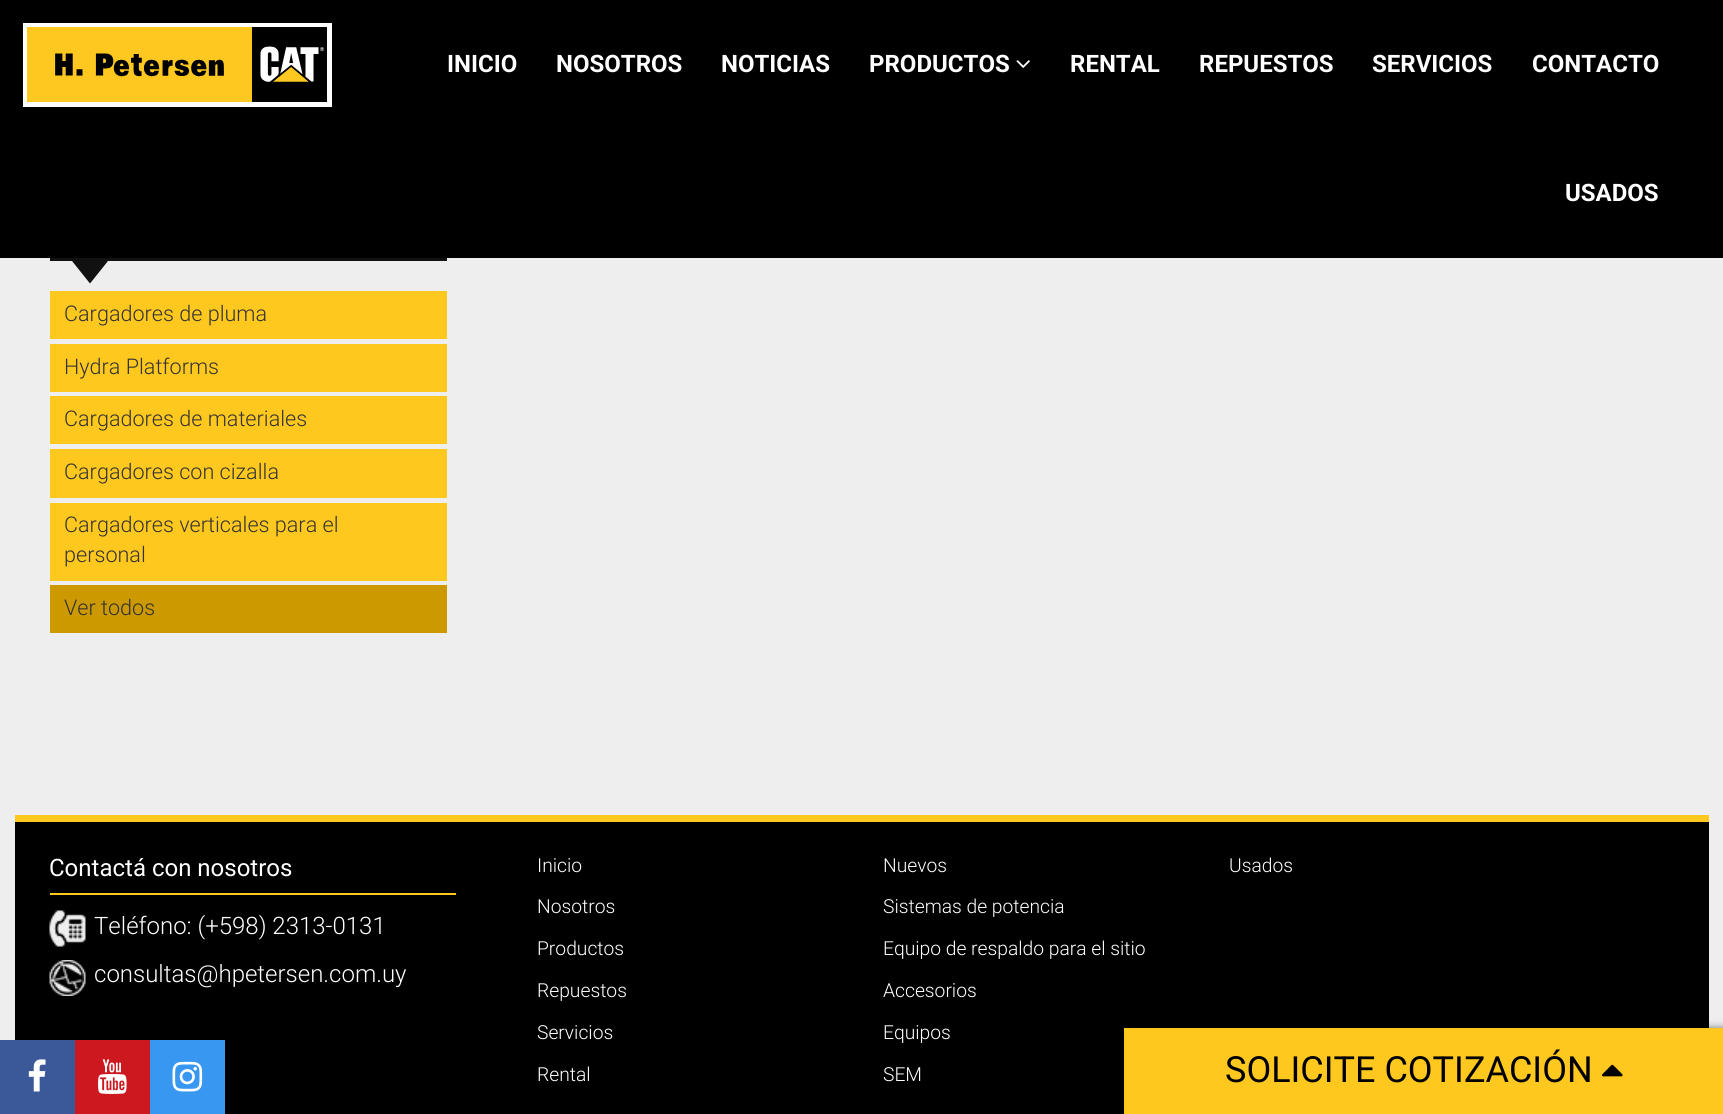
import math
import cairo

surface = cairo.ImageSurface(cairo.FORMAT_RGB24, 1723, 1114)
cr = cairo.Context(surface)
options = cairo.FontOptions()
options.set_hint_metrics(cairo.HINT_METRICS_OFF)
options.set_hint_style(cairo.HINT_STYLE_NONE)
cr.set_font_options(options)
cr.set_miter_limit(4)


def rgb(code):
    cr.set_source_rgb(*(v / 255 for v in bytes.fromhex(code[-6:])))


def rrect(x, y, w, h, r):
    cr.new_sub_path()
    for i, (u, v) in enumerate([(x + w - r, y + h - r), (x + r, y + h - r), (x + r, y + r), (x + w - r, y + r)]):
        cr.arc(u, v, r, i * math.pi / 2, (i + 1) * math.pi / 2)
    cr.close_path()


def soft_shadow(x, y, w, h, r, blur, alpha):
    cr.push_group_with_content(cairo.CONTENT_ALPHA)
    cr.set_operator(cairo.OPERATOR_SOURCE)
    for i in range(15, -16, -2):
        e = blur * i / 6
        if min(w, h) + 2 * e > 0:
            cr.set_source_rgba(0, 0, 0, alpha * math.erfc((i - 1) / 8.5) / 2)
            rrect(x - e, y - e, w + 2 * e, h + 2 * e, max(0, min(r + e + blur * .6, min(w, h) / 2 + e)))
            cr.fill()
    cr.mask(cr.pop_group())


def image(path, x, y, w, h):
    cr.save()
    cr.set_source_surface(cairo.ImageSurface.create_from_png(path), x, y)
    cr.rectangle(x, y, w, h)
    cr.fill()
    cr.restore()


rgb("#eeeeee")
cr.paint()
rgb("#000000")
cr.rectangle(0, 0, 1723, 258)
cr.fill()
cr.rectangle(25.5, 25.5, 304, 79)
rgb("#ffffff")
cr.set_line_width(5)
cr.stroke()
image("img/1.png", 27, 27, 300, 75)
image("img/2.png", 1016, 60, 14, 8)
rgb("#111111")
cr.rectangle(50, 258, 397, 3)
cr.fill()
cr.new_path()
cr.move_to(72, 261)
cr.line_to(108, 261)
cr.line_to(90, 283.5)
cr.close_path()
cr.fill()
for x, y, w, h, color in [
    (50, 291, 397, 48, "#ffc81f"),
    (50, 344, 397, 48, "#ffc81f"),
    (50, 396, 397, 48, "#ffc81f"),
    (50, 449, 397, 49, "#ffc81f"),
    (50, 503, 397, 78, "#ffc81f"),
    (50, 585, 397, 48, "#cc9900"),
    (15, 822, 1694, 292, "#000000"),
    (15, 815, 1694, 7, "#ffc81f"),
    (50, 893, 406, 2, "#ffc81f"),
]:
    rgb(color)
    cr.rectangle(x, y, w, h)
    cr.fill()
image("img/3.png", 49, 910, 37, 37)
image("img/4.png", 49, 960, 37, 36)
rgb("#3b5998")
cr.rectangle(0, 1040, 75, 74)
cr.fill()
image("img/5.png", 28, 1059, 18, 33)
rgb("#cc181e")
cr.rectangle(75, 1040, 75, 74)
cr.fill()
image("img/6.png", 98, 1059, 29, 35)
rgb("#3897f0")
cr.rectangle(150, 1040, 75, 74)
cr.fill()
image("img/7.png", 172, 1061, 31, 31)
rgb("#000000")
soft_shadow(1124, 1028, 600, 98, 0, 4, 0.5)
rgb("#ffc81f")
cr.rectangle(1124, 1028, 599, 86)
cr.fill()
image("img/8.png", 1602, 1064, 21, 13)
cr.select_font_face("Roboto", cairo.FONT_SLANT_NORMAL, cairo.FONT_WEIGHT_BOLD)
cr.set_font_size(24)
rgb("#ffffff")
for x, y, s in [
    (447, 72, "INICIO"),
    (556, 72, "NOSOTROS"),
    (721, 72, "NOTICIAS"),
    (869, 72, "PRODUCTOS"),
    (1070, 72, "RENTAL"),
    (1199, 72, "REPUESTOS"),
    (1372, 72, "SERVICIOS"),
    (1532, 72, "CONTACTO"),
    (1565, 201, "USADOS"),
]:
    cr.move_to(x, y)
    cr.show_text(s)
cr.select_font_face("Roboto Light")
cr.set_font_size(21.6)
rgb("#333333")
for x, y, s in [
    (64, 321, "Cargadores de pluma"),
    (64, 374, "Hydra Platforms"),
    (64, 426, "Cargadores de materiales"),
    (64, 479, "Cargadores con cizalla"),
    (64, 532, "Cargadores verticales para el"),
    (64, 562, "personal"),
    (64, 615, "Ver todos"),
]:
    cr.move_to(x, y)
    cr.show_text(s)
cr.select_font_face("Roboto")
cr.set_font_size(24)
rgb("#ffffff")
cr.move_to(49, 876)
cr.show_text("Contactá con nosotros")
cr.select_font_face("Roboto Light")
cr.move_to(94, 934)
cr.show_text("Teléfono: (+598) 2313-0131")
cr.move_to(94, 982)
cr.show_text("consultas@hpetersen.com.uy")
cr.set_font_size(19.25)
for x, y, s in [
    (537, 872, "Inicio"),
    (537, 913, "Nosotros"),
    (537, 955, "Productos"),
    (537, 997, "Repuestos"),
    (537, 1039, "Servicios"),
    (537, 1081, "Rental"),
    (883, 872, "Nuevos"),
    (883, 913, "Sistemas de potencia"),
    (883, 955, "Equipo de respaldo para el sitio"),
    (883, 997, "Accesorios"),
    (883, 1039, "Equipos"),
    (883, 1081, "SEM"),
    (1229, 872, "Usados"),
]:
    cr.move_to(x, y)
    cr.show_text(s)
cr.select_font_face("Roboto")
cr.set_font_size(36)
rgb("#000000")
cr.move_to(1225, 1082)
cr.show_text("SOLICITE COTIZACIÓN")
surface.write_to_png("page.png")
